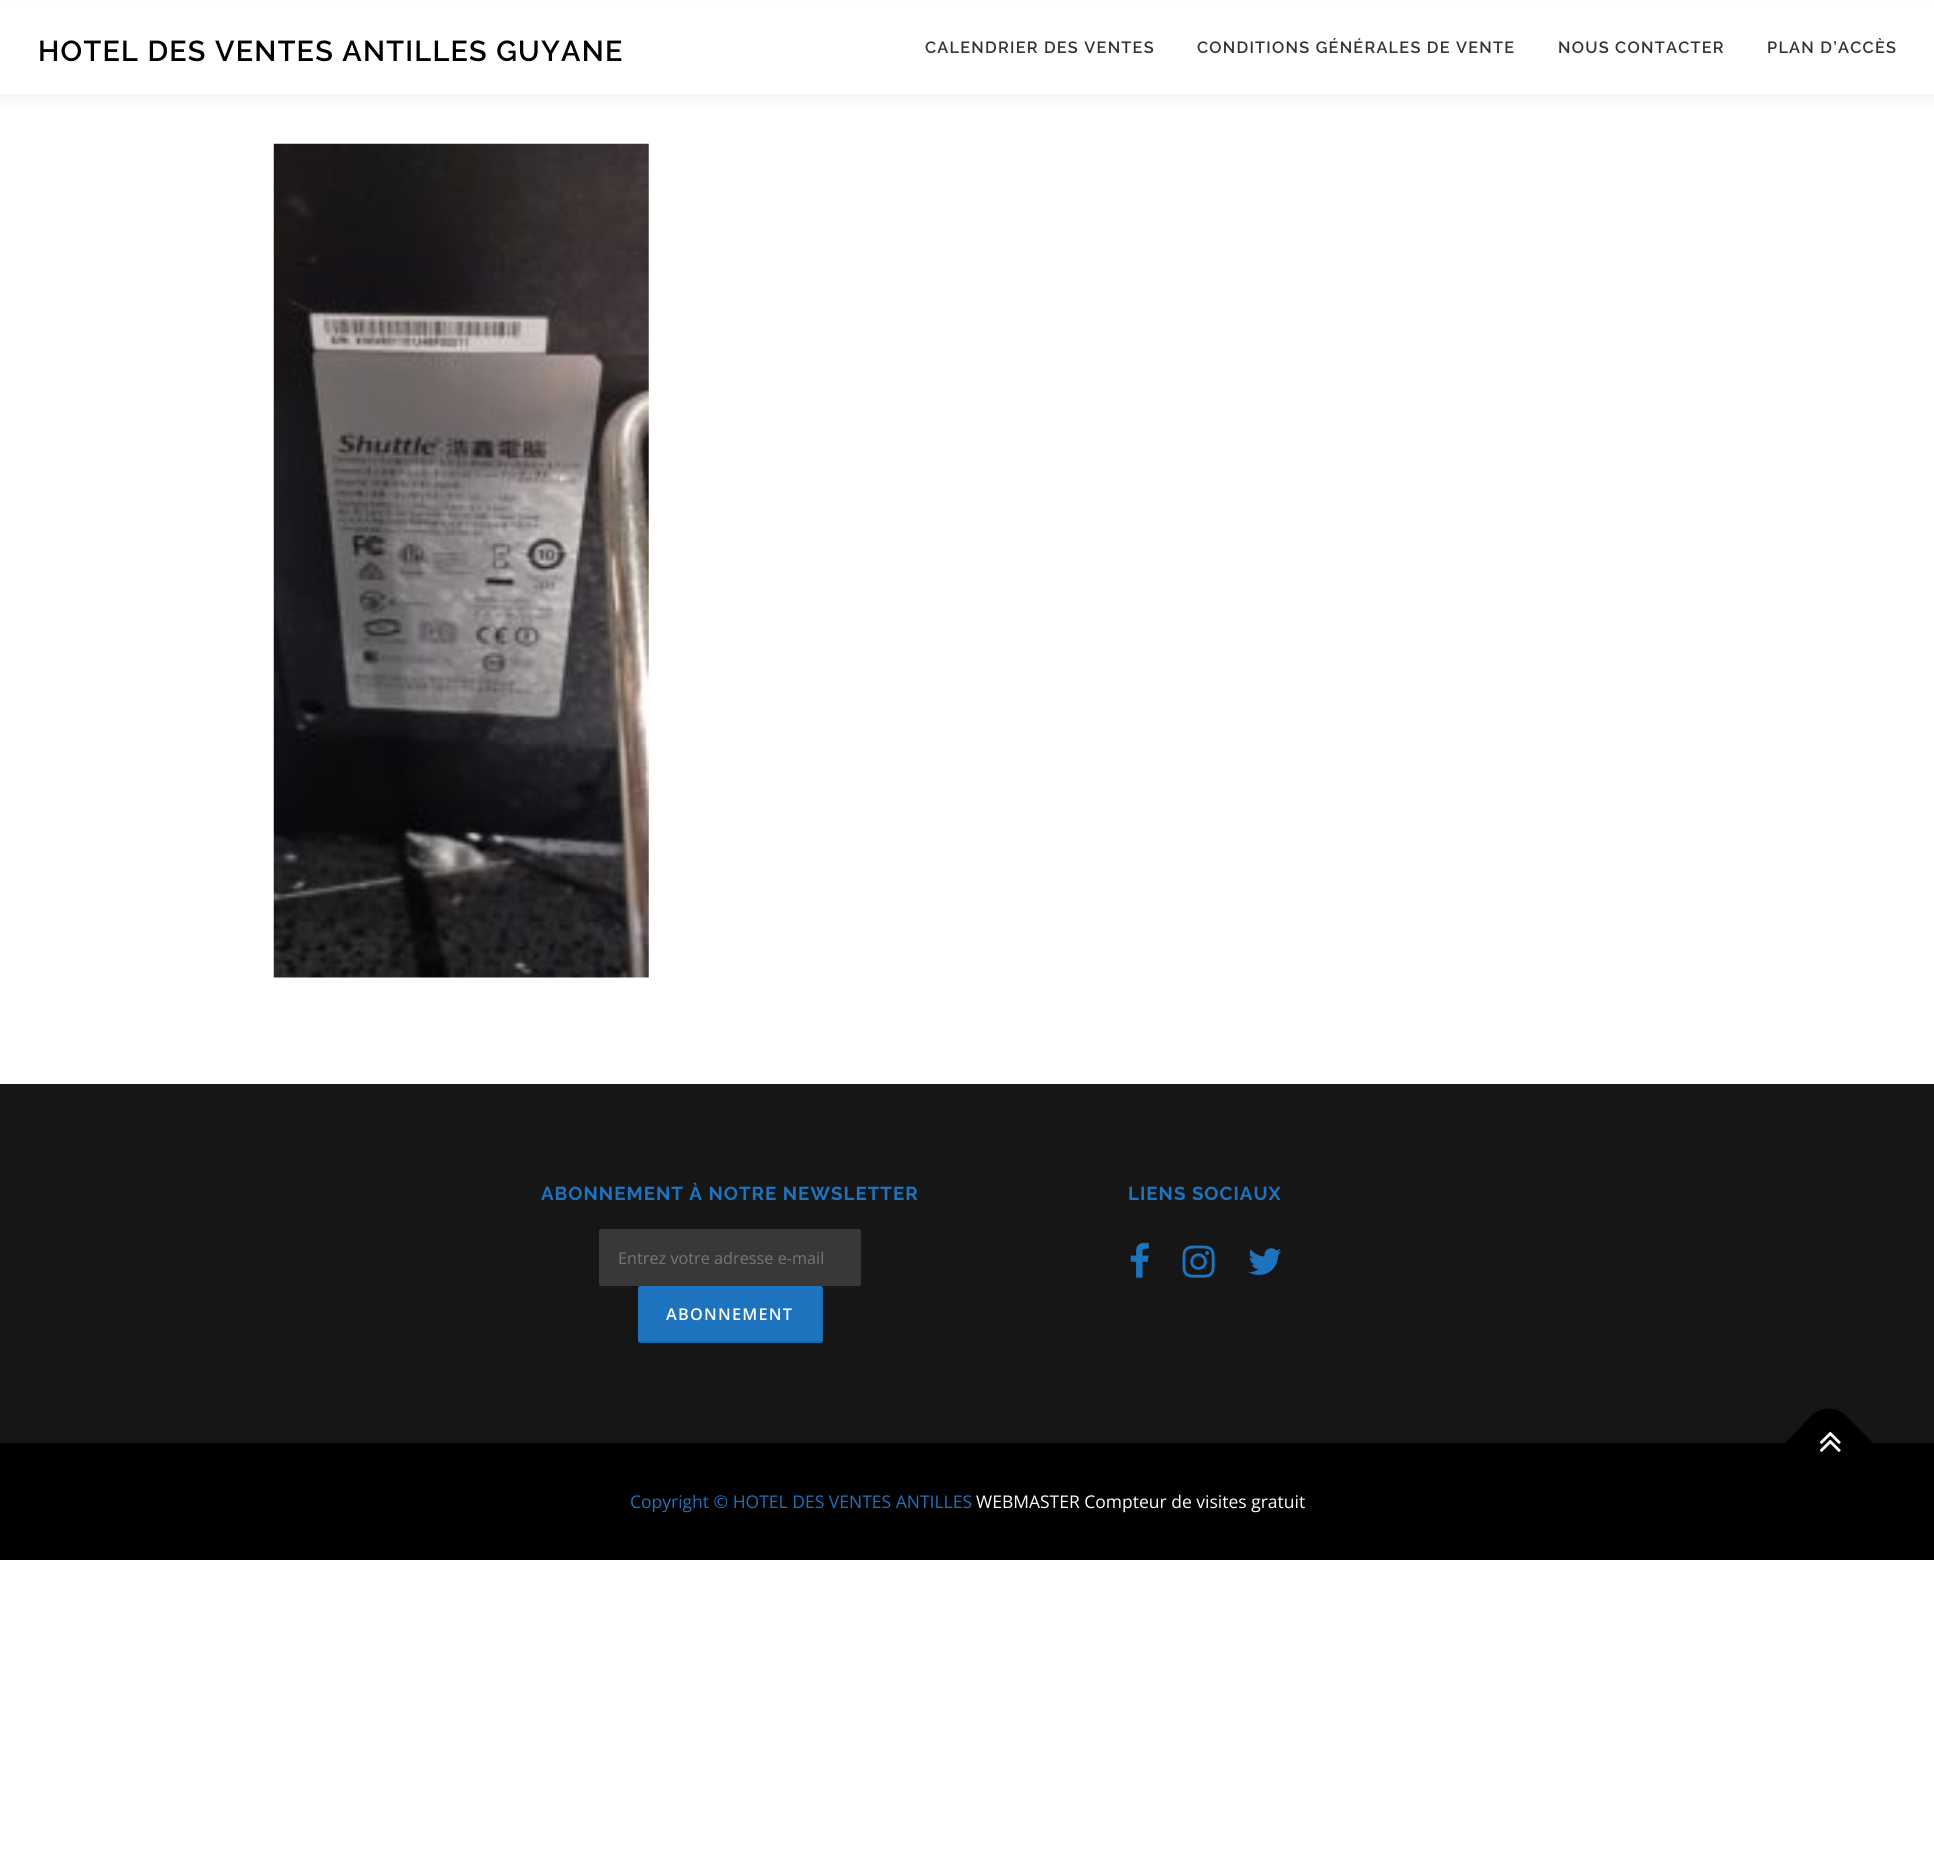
import math
import cairo

surface = cairo.ImageSurface(cairo.FORMAT_RGB24, 1934, 1874)
cr = cairo.Context(surface)
options = cairo.FontOptions()
options.set_hint_metrics(cairo.HINT_METRICS_OFF)
options.set_hint_style(cairo.HINT_STYLE_NONE)
cr.set_font_options(options)
cr.set_miter_limit(4)


def rgb(code):
    cr.set_source_rgb(*(v / 255 for v in bytes.fromhex(code[-6:])))


def tracked(x, y, s, letter, word):
    cr.move_to(x, y)
    for ch in s:
        cr.show_text(ch)
        cr.rel_move_to(letter + word * (ch == ' '), 0)


def rrect(x, y, w, h, r):
    cr.new_sub_path()
    for i, (u, v) in enumerate([(x + w - r, y + h - r), (x + r, y + h - r), (x + r, y + r), (x + w - r, y + r)]):
        cr.arc(u, v, r, i * math.pi / 2, (i + 1) * math.pi / 2)
    cr.close_path()


def soft_shadow(x, y, w, h, r, blur, alpha):
    cr.push_group_with_content(cairo.CONTENT_ALPHA)
    cr.set_operator(cairo.OPERATOR_SOURCE)
    for i in range(15, -16, -2):
        e = blur * i / 6
        if min(w, h) + 2 * e > 0:
            cr.set_source_rgba(0, 0, 0, alpha * math.erfc((i - 1) / 8.5) / 2)
            rrect(x - e, y - e, w + 2 * e, h + 2 * e, max(0, min(r + e + blur * .6, min(w, h) / 2 + e)))
            cr.fill()
    cr.mask(cr.pop_group())


def image(path, x, y, w, h):
    cr.save()
    cr.set_source_surface(cairo.ImageSurface.create_from_png(path), x, y)
    cr.rectangle(x, y, w, h)
    cr.fill()
    cr.restore()


rgb("#ffffff")
cr.paint()
rgb("#323232")
soft_shadow(0, 6, 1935, 94, 0, 6, 0.06)
rgb("#ffffff")
cr.rectangle(0, 1, 1934, 93)
cr.fill()
image("img/1.png", 273, 143, 376, 835)
rgb("#161616")
cr.rectangle(0, 1084, 1934, 359)
cr.fill()
rgb("#383838")
rrect(599, 1229, 262, 57, 2.5)
cr.fill()
rgb("#1e73be")
rrect(638, 1286, 185, 57, 2.5)
cr.fill()
cr.set_source_rgba(0, 0, 0, 0.1)
cr.new_path()
cr.move_to(638, 1339)
cr.line_to(638, 1340)
cr.curve_to(638, 1342, 639, 1343, 640, 1343)
cr.line_to(820, 1343)
cr.curve_to(822, 1343, 823, 1342, 823, 1340)
cr.line_to(823, 1288)
cr.curve_to(823, 1288, 822, 1287, 822, 1286)
cr.line_to(822, 1339)
cr.curve_to(822, 1340, 821, 1341, 820, 1341)
cr.line_to(640, 1341)
cr.curve_to(639, 1341, 638, 1340, 638, 1339)
cr.close_path()
cr.fill()
image("img/2.png", 1130, 1242, 19, 36)
image("img/3.png", 1182, 1245, 33, 33)
image("img/4.png", 1248, 1248, 34, 27)
rgb("#000000")
cr.rectangle(0, 1443, 1934, 117)
cr.fill()
cr.new_path()
cr.move_to(1785, 1443)
cr.line_to(1811, 1416)
cr.curve_to(1821, 1406, 1837, 1406, 1846, 1416)
cr.line_to(1873, 1443)
cr.line_to(1829, 1487)
cr.close_path()
cr.fill()
image("img/5.png", 1819, 1431, 22, 21)
cr.select_font_face("Raleway SemiBold")
cr.set_font_size(28.75)
tracked(38, 61, "HOTEL DES VENTES ANTILLES GUYANE", 1.25, 0)
cr.set_font_size(16.25)
rgb("#333333")
for x, y, s in [
    (925, 53, "CALENDRIER DES VENTES"),
    (1197, 53, "CONDITIONS GÉNÉRALES DE VENTE"),
    (1558, 53, "NOUS CONTACTER"),
    (1767, 53, "PLAN D’ACCÈS"),
]:
    tracked(x, y, s, 1.25, 0)
cr.select_font_face("Raleway", cairo.FONT_SLANT_NORMAL, cairo.FONT_WEIGHT_BOLD)
cr.set_font_size(18.75)
rgb("#1e73be")
tracked(541, 1200, "ABONNEMENT À NOTRE NEWSLETTER", 1, 0)
cr.select_font_face("Open Sans")
cr.set_font_size(16.25)
rgb("#757575")
cr.move_to(618, 1264)
cr.show_text("Entrez votre adresse e-mail")
cr.select_font_face("Open Sans SemiBold")
rgb("#ffffff")
tracked(666, 1320, "ABONNEMENT", 1.25, 0)
cr.select_font_face("Raleway", cairo.FONT_SLANT_NORMAL, cairo.FONT_WEIGHT_BOLD)
cr.set_font_size(18.75)
rgb("#1e73be")
tracked(1128, 1200, "LIENS SOCIAUX", 1, 0)
cr.select_font_face("Open Sans")
cr.set_font_size(17.5)
cr.move_to(630, 1508)
cr.show_text("Copyright © HOTEL DES VENTES ANTILLES")
rgb("#ffffff")
cr.move_to(976, 1508)
cr.show_text("WEBMASTER Compteur de visites gratuit")
surface.write_to_png("page.png")
